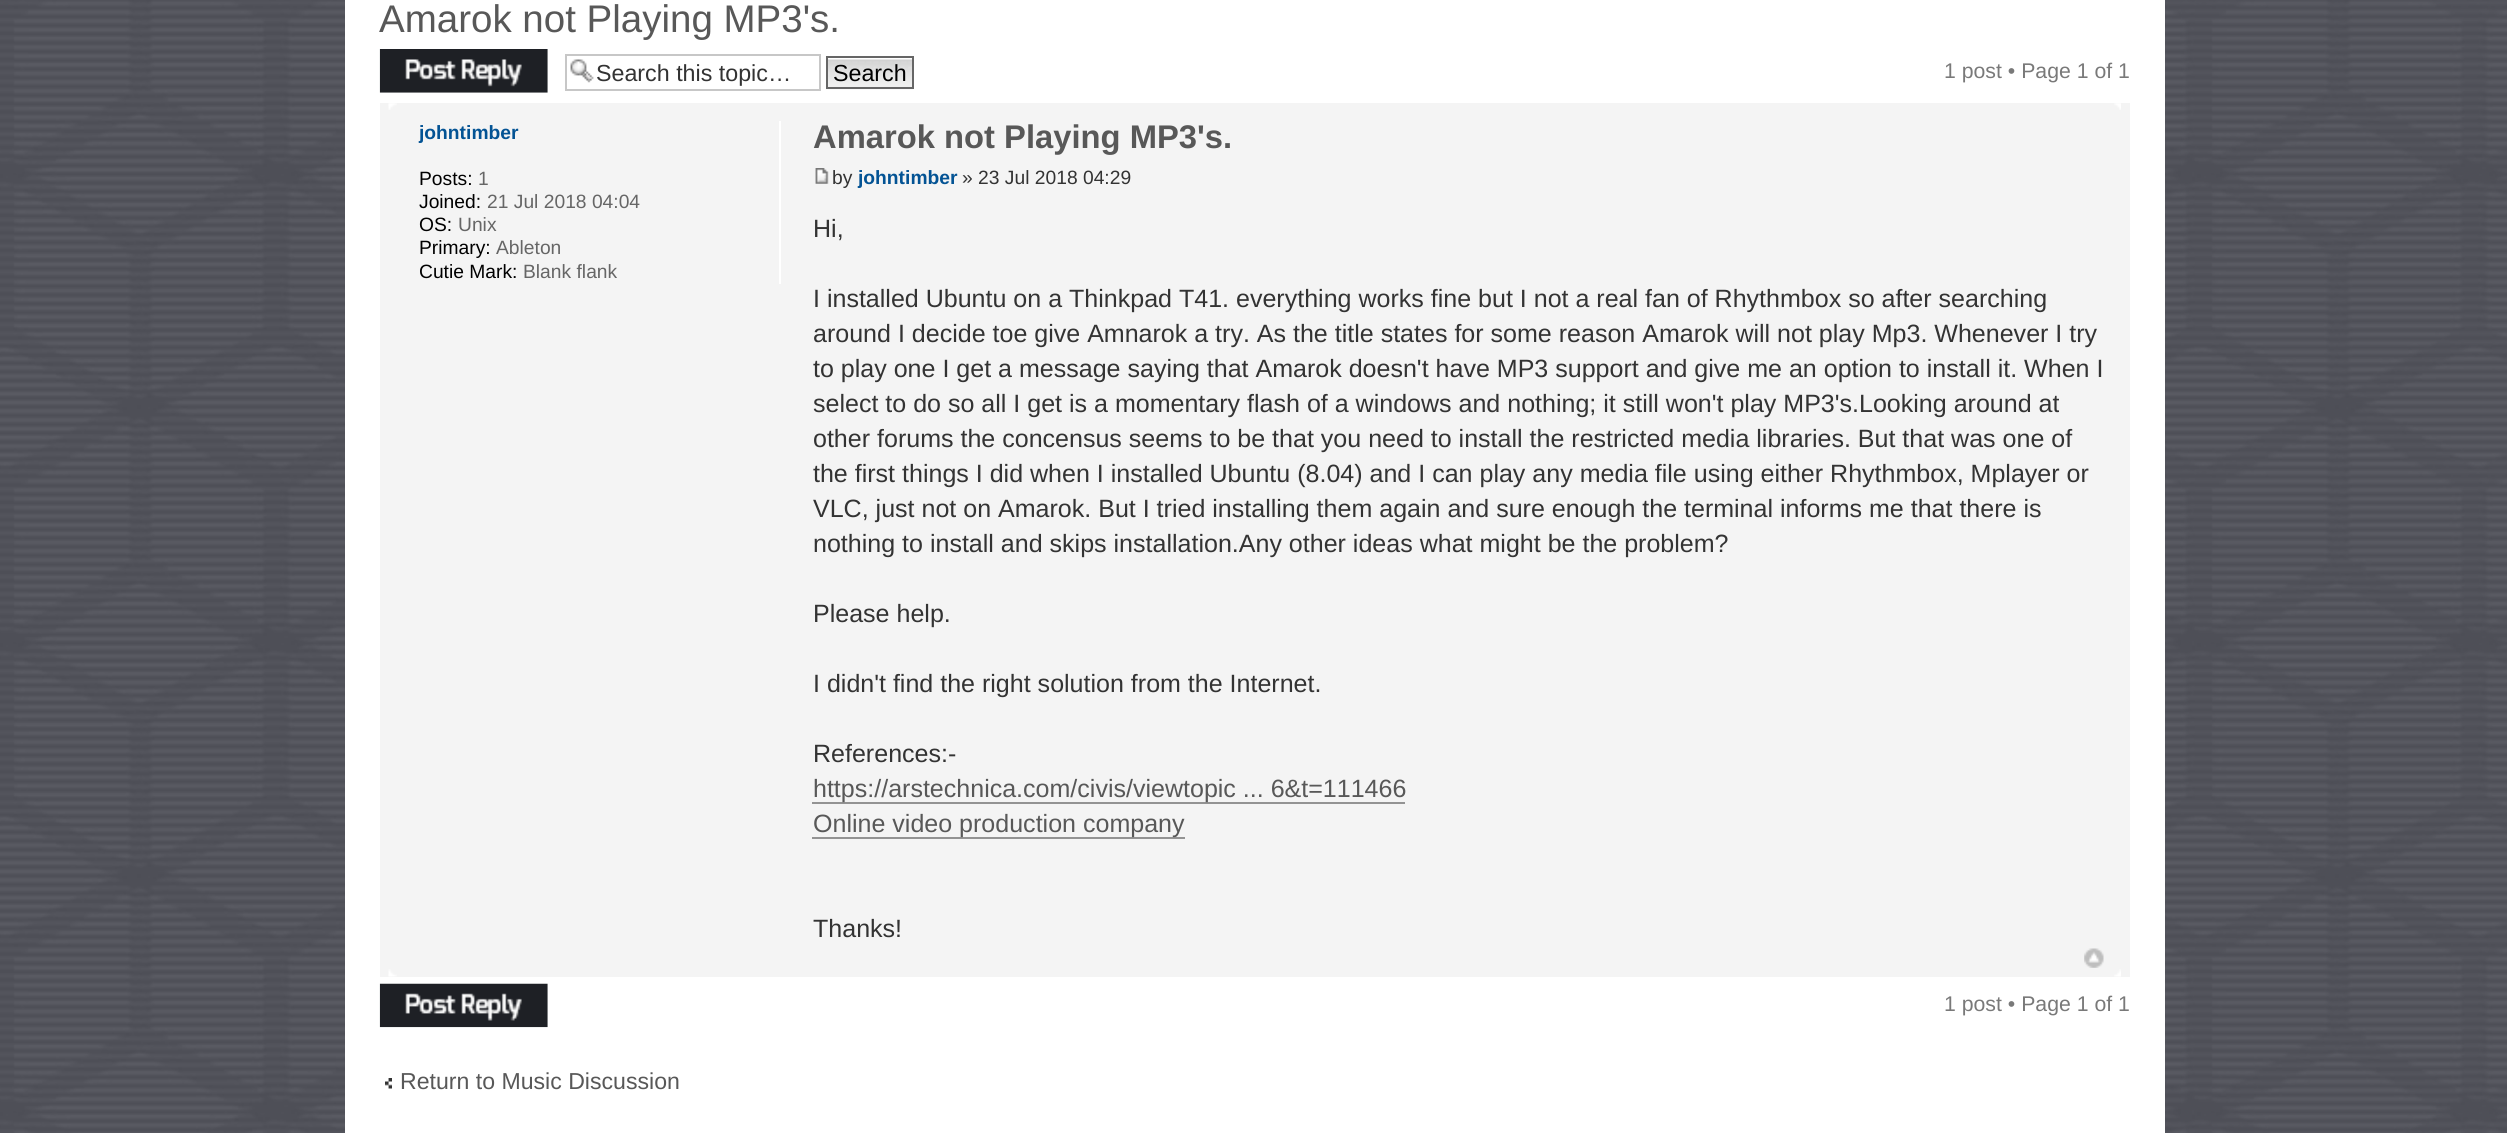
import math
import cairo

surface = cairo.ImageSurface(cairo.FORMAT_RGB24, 2507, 1133)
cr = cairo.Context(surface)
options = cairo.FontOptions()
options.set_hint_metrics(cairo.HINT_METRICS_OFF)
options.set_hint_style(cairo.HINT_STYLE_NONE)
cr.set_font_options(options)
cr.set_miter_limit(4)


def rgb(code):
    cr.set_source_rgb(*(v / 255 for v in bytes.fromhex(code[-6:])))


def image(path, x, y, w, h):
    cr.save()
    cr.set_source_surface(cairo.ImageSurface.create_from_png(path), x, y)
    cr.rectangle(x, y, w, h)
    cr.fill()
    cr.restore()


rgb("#ffffff")
cr.paint()
image("img/1.png", 0, 0, 2507, 1133)
rgb("#ffffff")
cr.rectangle(345, 0, 1820, 1133)
cr.fill()
image("img/2.png", 379, 49, 169, 44)
image("img/3.png", 570, 59, 24, 24)
cr.rectangle(566, 55, 254, 35)
rgb("#c7c7c7")
cr.stroke()
image("img/4.png", 826, 58, 88, 32)
cr.rectangle(827, 57, 86, 31)
rgb("#666666")
cr.stroke()
rgb("#f4f4f4")
cr.rectangle(380, 103, 1750, 874)
cr.fill()
image("img/5.png", 388, 103, 9, 7)
image("img/6.png", 2114, 103, 7, 7)
rgb("#ffffff")
cr.rectangle(779, 121, 2, 163)
cr.fill()
image("img/7.png", 815, 168, 14, 16)
rgb("#939393")
cr.rectangle(812, 802, 593, 2)
cr.fill()
cr.rectangle(812, 837, 373, 2)
cr.fill()
image("img/8.png", 2084, 948, 20, 20)
image("img/9.png", 388, 969, 9, 8)
image("img/10.png", 2114, 969, 7, 8)
image("img/11.png", 379, 983, 169, 45)
image("img/12.png", 385, 1078, 7, 11)
cr.select_font_face("Liberation Sans")
cr.set_font_size(38.5)
rgb("#585858")
cr.move_to(379, 32)
cr.show_text("Amarok not Playing MP3's.")
cr.set_font_size(23.25)
rgb("#333333")
cr.move_to(596, 81)
cr.show_text("Search this topic…")
rgb("#000000")
cr.move_to(833, 81)
cr.show_text("Search")
cr.set_font_size(21.25)
rgb("#797979")
cr.move_to(1944, 78)
cr.show_text("1 post • Page 1 of 1")
cr.select_font_face("Liberation Sans", cairo.FONT_SLANT_NORMAL, cairo.FONT_WEIGHT_BOLD)
cr.set_font_size(19.25)
rgb("#035394")
cr.move_to(419, 139)
cr.show_text("johntimber")
cr.select_font_face("Liberation Sans")
rgb("#000000")
cr.move_to(419, 185)
cr.show_text("Posts:")
rgb("#666666")
cr.move_to(478, 185)
cr.show_text("1")
rgb("#000000")
cr.move_to(419, 208)
cr.show_text("Joined:")
rgb("#666666")
cr.move_to(487, 208)
cr.show_text("21 Jul 2018 04:04")
rgb("#000000")
cr.move_to(419, 231)
cr.show_text("OS:")
rgb("#666666")
cr.move_to(458, 231)
cr.show_text("Unix")
rgb("#000000")
cr.move_to(419, 254)
cr.show_text("Primary:")
rgb("#666666")
cr.move_to(496, 254)
cr.show_text("Ableton")
rgb("#000000")
cr.move_to(419, 278)
cr.show_text("Cutie Mark:")
rgb("#666666")
cr.move_to(523, 278)
cr.show_text("Blank flank")
cr.select_font_face("Liberation Sans", cairo.FONT_SLANT_NORMAL, cairo.FONT_WEIGHT_BOLD)
cr.set_font_size(32.75)
rgb("#585858")
cr.move_to(813, 148)
cr.show_text("Amarok not Playing MP3's.")
cr.select_font_face("Liberation Sans")
cr.set_font_size(19.25)
rgb("#333333")
cr.move_to(832, 184)
cr.show_text("by")
cr.select_font_face("Liberation Sans", cairo.FONT_SLANT_NORMAL, cairo.FONT_WEIGHT_BOLD)
rgb("#035394")
cr.move_to(858, 184)
cr.show_text("johntimber")
cr.select_font_face("Liberation Sans")
rgb("#333333")
cr.move_to(962, 184)
cr.show_text("» 23 Jul 2018 04:29")
cr.set_font_size(25.03)
for x, y, s in [
    (813, 237, "Hi,"),
    (813, 307, "I installed Ubuntu on a Thinkpad T41. everything works fine but I not a real fan of Rhythmbox so after searching"),
    (813, 342, "around I decide toe give Amnarok a try. As the title states for some reason Amarok will not play Mp3. Whenever I try"),
    (813, 377, "to play one I get a message saying that Amarok doesn't have MP3 support and give me an option to install it. When I"),
    (813, 412, "select to do so all I get is a momentary flash of a windows and nothing; it still won't play MP3's.Looking around at"),
    (813, 447, "other forums the concensus seems to be that you need to install the restricted media libraries. But that was one of"),
    (813, 482, "the first things I did when I installed Ubuntu (8.04) and I can play any media file using either Rhythmbox, Mplayer or"),
    (813, 517, "VLC, just not on Amarok. But I tried installing them again and sure enough the terminal informs me that there is"),
    (813, 552, "nothing to install and skips installation.Any other ideas what might be the problem?"),
    (813, 622, "Please help."),
    (813, 692, "I didn't find the right solution from the Internet."),
    (813, 762, "References:-"),
]:
    cr.move_to(x, y)
    cr.show_text(s)
rgb("#585858")
cr.move_to(813, 797)
cr.show_text("https://arstechnica.com/civis/viewtopic ... 6&t=111466")
cr.move_to(813, 832)
cr.show_text("Online video production company")
rgb("#333333")
cr.move_to(813, 937)
cr.show_text("Thanks!")
cr.set_font_size(21.25)
rgb("#797979")
cr.move_to(1944, 1011)
cr.show_text("1 post • Page 1 of 1")
cr.set_font_size(23.1)
rgb("#585858")
cr.move_to(400, 1089)
cr.show_text("Return to Music Discussion")
surface.write_to_png("page.png")
